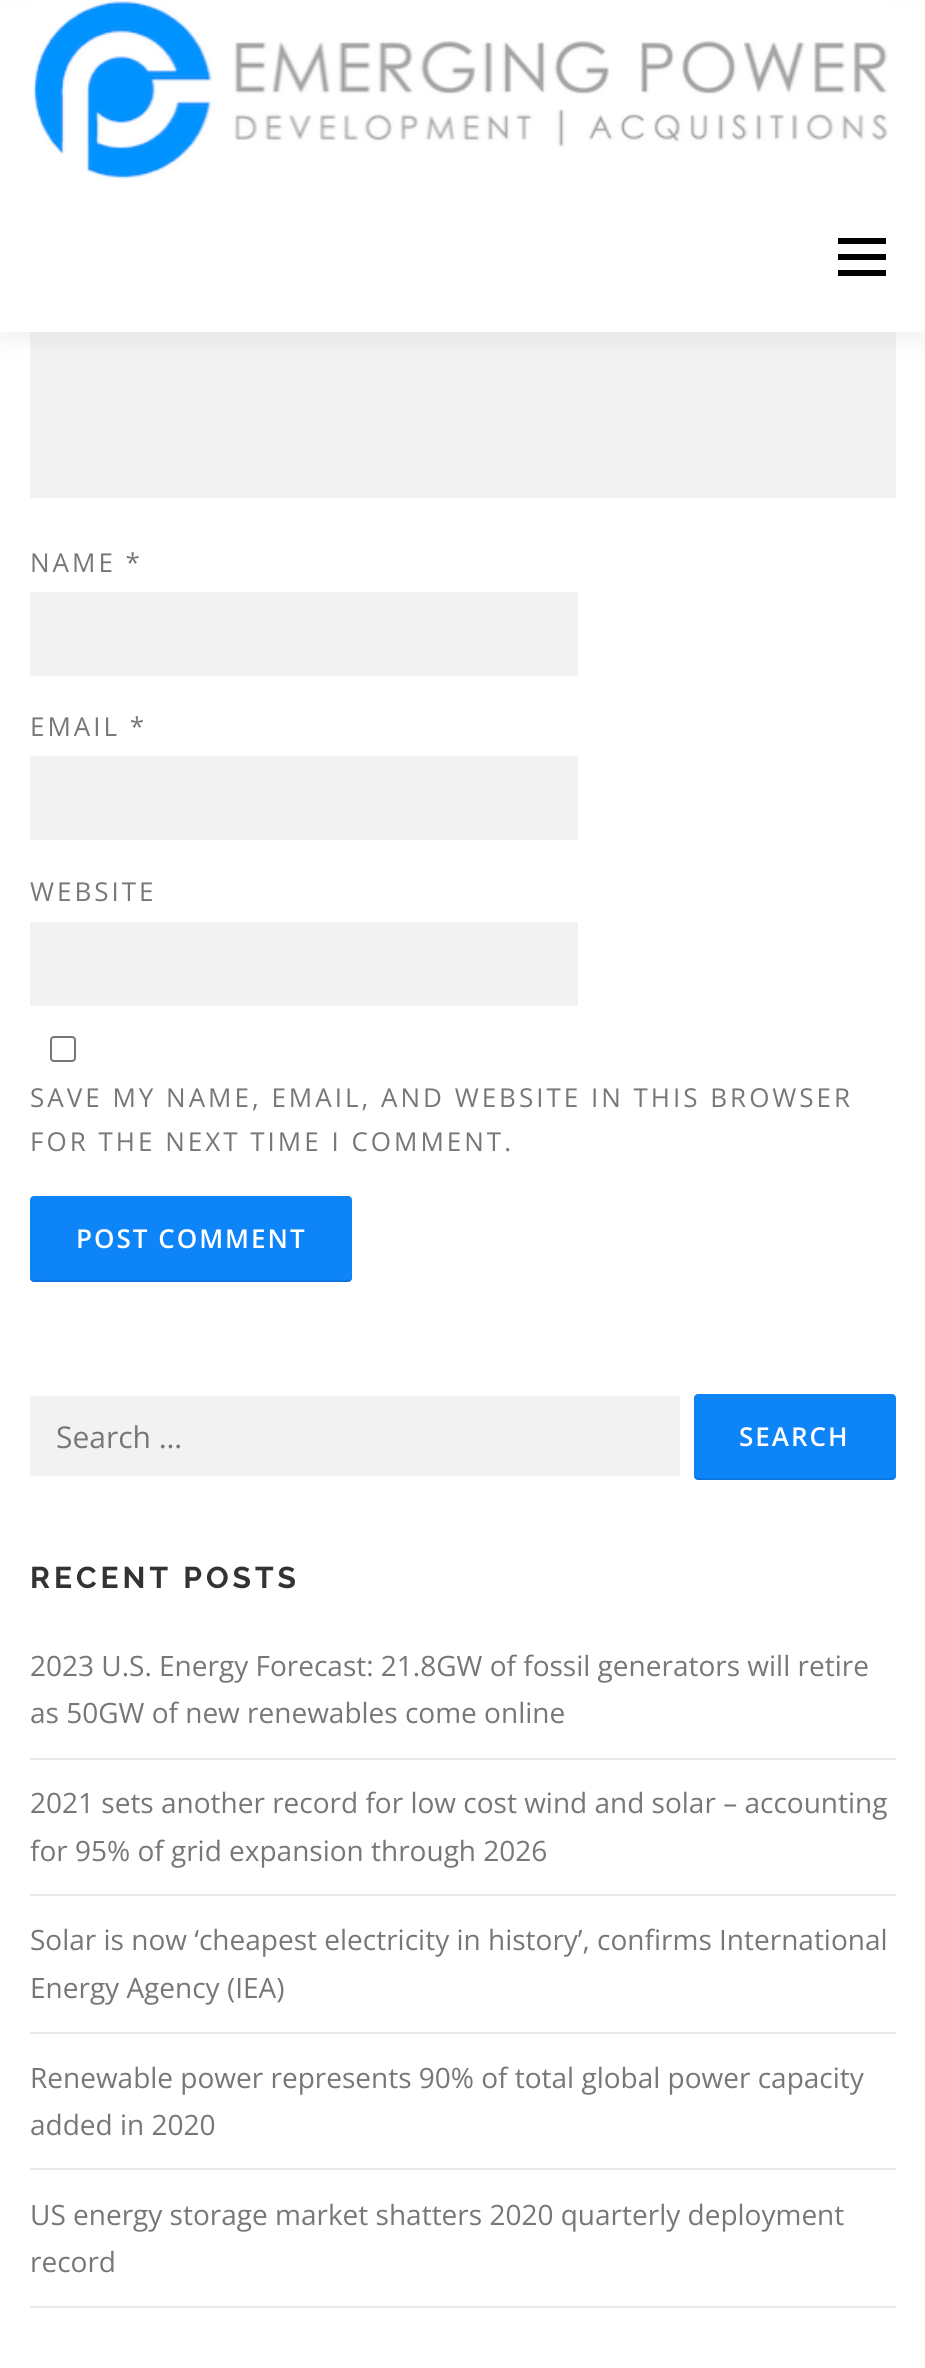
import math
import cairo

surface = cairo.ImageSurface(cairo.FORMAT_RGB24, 925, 2368)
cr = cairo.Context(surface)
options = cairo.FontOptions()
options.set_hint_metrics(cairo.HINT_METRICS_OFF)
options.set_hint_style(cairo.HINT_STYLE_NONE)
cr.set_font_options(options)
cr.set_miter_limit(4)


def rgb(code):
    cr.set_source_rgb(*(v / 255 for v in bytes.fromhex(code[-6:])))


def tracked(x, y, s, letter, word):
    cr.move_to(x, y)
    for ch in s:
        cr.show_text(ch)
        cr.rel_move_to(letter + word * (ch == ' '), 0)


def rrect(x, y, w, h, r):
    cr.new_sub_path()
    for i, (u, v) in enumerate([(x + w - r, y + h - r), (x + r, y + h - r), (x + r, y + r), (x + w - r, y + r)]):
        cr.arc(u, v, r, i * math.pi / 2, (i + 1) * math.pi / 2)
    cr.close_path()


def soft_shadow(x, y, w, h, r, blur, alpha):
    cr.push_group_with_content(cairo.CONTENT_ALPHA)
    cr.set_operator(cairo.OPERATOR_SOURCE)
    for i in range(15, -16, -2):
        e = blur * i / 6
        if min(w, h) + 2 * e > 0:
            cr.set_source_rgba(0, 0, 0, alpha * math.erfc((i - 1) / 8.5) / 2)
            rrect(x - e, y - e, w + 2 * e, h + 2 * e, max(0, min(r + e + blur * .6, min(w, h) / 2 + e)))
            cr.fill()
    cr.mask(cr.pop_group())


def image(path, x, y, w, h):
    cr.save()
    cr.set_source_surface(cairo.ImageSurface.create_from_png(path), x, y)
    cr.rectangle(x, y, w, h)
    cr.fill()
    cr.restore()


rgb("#ffffff")
cr.paint()
rgb("#f2f2f2")
cr.rectangle(30, 332, 866, 166)
cr.fill()
rgb("#323232")
soft_shadow(0, 10, 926, 332, 0, 10, 0.06)
rgb("#ffffff")
cr.rectangle(0, 2, 925, 330)
cr.fill()
image("img/1.png", 33, 1, 855, 178)
for x, y, w, h, color in [
    (838, 254, 48, 6, "#000000"),
    (838, 238, 48, 6, "#000000"),
    (838, 270, 48, 6, "#000000"),
    (30, 592, 548, 84, "#f2f2f2"),
    (30, 756, 548, 84, "#f2f2f2"),
    (30, 922, 548, 84, "#f2f2f2"),
]:
    rgb(color)
    cr.rectangle(x, y, w, h)
    cr.fill()
rrect(51, 1037, 24, 24, 3)
rgb("#767676")
cr.stroke()
rgb("#0e84f9")
rrect(30, 1196, 322, 86, 4)
cr.fill()
cr.set_source_rgba(0, 0, 0, 0.1)
cr.new_path()
cr.move_to(30, 1276)
cr.curve_to(30, 1279, 30, 1282, 34, 1282)
cr.line_to(348, 1282)
cr.curve_to(352, 1282, 352, 1279, 352, 1276)
cr.curve_to(352, 1278, 350, 1280, 348, 1280)
cr.line_to(34, 1280)
cr.curve_to(32, 1280, 30, 1278, 30, 1276)
cr.close_path()
cr.fill()
rgb("#f2f2f2")
cr.rectangle(30, 1396, 650, 80)
cr.fill()
rgb("#0e84f9")
rrect(694, 1394, 202, 86, 4)
cr.fill()
cr.set_source_rgba(0, 0, 0, 0.1)
cr.new_path()
cr.move_to(694, 1474)
cr.line_to(694, 1476)
cr.curve_to(694, 1478, 696, 1480, 698, 1480)
cr.line_to(892, 1480)
cr.curve_to(894, 1480, 896, 1478, 896, 1476)
cr.line_to(896, 1474)
cr.curve_to(896, 1476, 894, 1478, 892, 1478)
cr.line_to(698, 1478)
cr.curve_to(696, 1478, 694, 1476, 694, 1474)
cr.close_path()
cr.fill()
for x, y, w, h, color in [
    (30, 1758, 866, 2, "#e9e9e9"),
    (30, 1894, 866, 2, "#e9e9e9"),
    (30, 2032, 866, 2, "#e9e9e9"),
    (30, 2168, 866, 2, "#e9e9e9"),
    (30, 2306, 866, 2, "#e9e9e9"),
]:
    rgb(color)
    cr.rectangle(x, y, w, h)
    cr.fill()
cr.select_font_face("Open Sans")
cr.set_font_size(26)
rgb("#777777")
for x, y, s in [
    (30, 572, "NAME *"),
    (30, 736, "EMAIL *"),
    (30, 901, "WEBSITE"),
    (30, 1107, "SAVE MY NAME, EMAIL, AND WEBSITE IN THIS BROWSER"),
    (30, 1151, "FOR THE NEXT TIME I COMMENT."),
]:
    tracked(x, y, s, 3, 0)
cr.select_font_face("Open Sans SemiBold")
rgb("#ffffff")
tracked(76, 1248, "POST COMMENT", 2, 0)
cr.select_font_face("Open Sans")
cr.set_font_size(30)
rgb("#777777")
cr.move_to(56, 1448)
cr.show_text("Search …")
cr.select_font_face("Open Sans SemiBold")
cr.set_font_size(26)
rgb("#ffffff")
tracked(739, 1446, "SEARCH", 2, 0)
cr.select_font_face("Raleway", cairo.FONT_SLANT_NORMAL, cairo.FONT_WEIGHT_BOLD)
cr.set_font_size(30)
rgb("#333333")
tracked(30, 1588, "RECENT POSTS", 4, 0)
cr.select_font_face("Open Sans")
cr.set_font_size(28)
rgb("#777777")
for x, y, s in [
    (30, 1676, "2023 U.S. Energy Forecast: 21.8GW of fossil generators will retire"),
    (30, 1723, "as 50GW of new renewables come online"),
    (30, 1813, "2021 sets another record for low cost wind and solar – accounting"),
    (30, 1861, "for 95% of grid expansion through 2026"),
    (30, 1950, "Solar is now ‘cheapest electricity in history’, confirms International"),
    (30, 1998, "Energy Agency (IEA)"),
    (30, 2088, "Renewable power represents 90% of total global power capacity"),
    (30, 2135, "added in 2020"),
    (30, 2225, "US energy storage market shatters 2020 quarterly deployment"),
    (30, 2272, "record"),
]:
    cr.move_to(x, y)
    cr.show_text(s)
surface.write_to_png("page.png")
